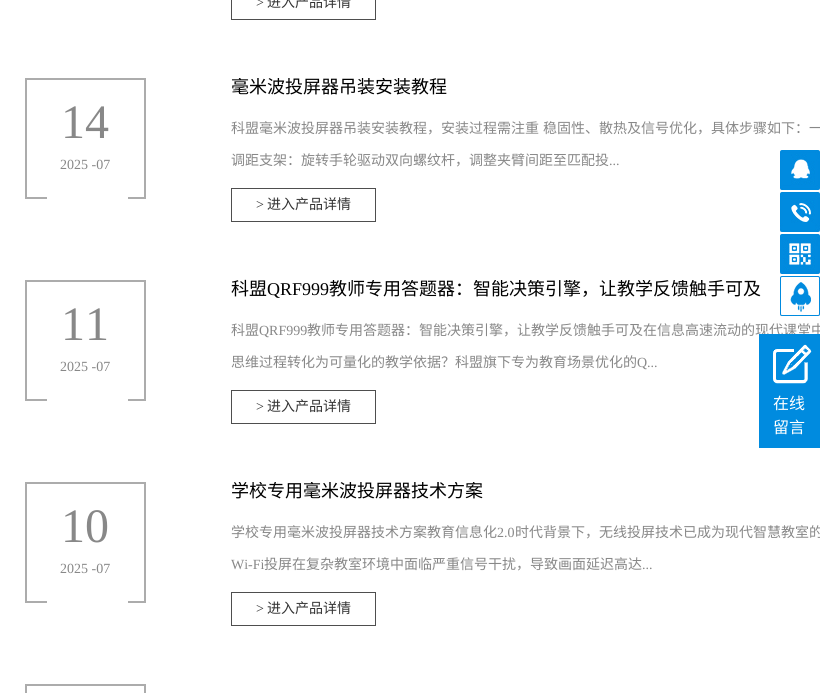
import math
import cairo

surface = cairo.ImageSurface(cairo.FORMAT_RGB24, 820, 693)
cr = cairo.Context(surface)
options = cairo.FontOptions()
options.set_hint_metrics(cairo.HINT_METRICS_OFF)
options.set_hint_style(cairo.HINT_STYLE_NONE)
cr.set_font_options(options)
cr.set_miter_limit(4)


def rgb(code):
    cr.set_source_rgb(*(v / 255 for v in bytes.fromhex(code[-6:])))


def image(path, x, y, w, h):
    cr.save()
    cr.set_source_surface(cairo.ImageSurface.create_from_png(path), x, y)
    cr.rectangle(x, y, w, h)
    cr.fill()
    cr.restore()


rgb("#ffffff")
cr.paint()
cr.rectangle(231.5, -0.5, 144, 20)
rgb("#4e4e4e")
cr.set_line_width(1)
cr.stroke()
image("img/1.png", 25, 78, 121, 121)
cr.rectangle(231.5, 188.5, 144, 33)
cr.stroke()
image("img/1.png", 25, 280, 121, 121)
cr.rectangle(231.5, 390.5, 144, 33)
cr.stroke()
image("img/1.png", 25, 482, 121, 121)
cr.rectangle(231.5, 592.5, 144, 33)
cr.stroke()
image("img/2.png", 25, 684, 121, 9)
image("img/3.png", 780, 150, 40, 40)
image("img/4.png", 780, 192, 40, 40)
image("img/5.png", 780, 234, 40, 40)
image("img/6.png", 780, 276, 40, 40)
cr.select_font_face("Liberation Serif")
cr.set_font_size(14)
rgb("#333333")
cr.move_to(256, 7)
cr.show_text(">")
cr.select_font_face("Noto Sans CJK SC")
cr.move_to(267, 7)
cr.show_text("进入产品详情")
cr.select_font_face("Liberation Serif")
cr.set_font_size(48)
rgb("#888888")
cr.move_to(61, 138)
cr.show_text("14")
cr.set_font_size(14)
cr.move_to(60, 169)
cr.show_text("2025 -07")
cr.save()
cr.rectangle(231, 78, 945, 18)
cr.clip()
cr.select_font_face("Noto Sans CJK SC")
cr.set_font_size(18)
rgb("#000000")
cr.move_to(231, 93)
cr.show_text("毫米波投屏器吊装安装教程")
cr.restore()
cr.select_font_face("Noto Sans CJK SC")
for x, y, s in [
    (231, 133, "科盟毫米波投屏器吊装安装教程，安装过程需注重"),
    (543, 133, "稳固性、散热及信号优化，具体步骤如下：一"),
    (231, 165, "调距支架：旋转手轮驱动双向螺纹杆，调整夹臂间距至匹配投"),
]:
    cr.move_to(x, y)
    cr.show_text(s)
cr.select_font_face("Liberation Serif")
cr.move_to(609, 165)
cr.show_text("...")
rgb("#333333")
cr.move_to(256, 209)
cr.show_text(">")
cr.select_font_face("Noto Sans CJK SC")
cr.move_to(267, 209)
cr.show_text("进入产品详情")
cr.select_font_face("Liberation Serif")
cr.set_font_size(48)
rgb("#888888")
cr.move_to(61, 340)
cr.show_text("11")
cr.set_font_size(14)
cr.move_to(60, 371)
cr.show_text("2025 -07")
cr.select_font_face("Noto Sans CJK SC")
cr.set_font_size(18)
rgb("#000000")
cr.move_to(231, 295)
cr.show_text("科盟")
cr.select_font_face("Liberation Serif")
cr.move_to(267, 295)
cr.show_text("QRF999")
cr.save()
cr.rectangle(231, 280, 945, 18)
cr.clip()
cr.select_font_face("Noto Sans CJK SC")
cr.move_to(329, 295)
cr.show_text("教师专用答题器：智能决策引擎，让教学反馈触手可及")
cr.restore()
cr.select_font_face("Noto Sans CJK SC")
cr.set_font_size(14)
rgb("#888888")
cr.move_to(231, 335)
cr.show_text("科盟")
cr.select_font_face("Liberation Serif")
cr.move_to(259, 335)
cr.show_text("QRF999")
cr.select_font_face("Noto Sans CJK SC")
cr.move_to(307, 335)
cr.show_text("教师专用答题器：智能决策引擎，让教学反馈触手可及在信息高速流动的现代课堂中")
cr.move_to(231, 367)
cr.show_text("思维过程转化为可量化的教学依据？科盟旗下专为教育场景优化的")
cr.select_font_face("Liberation Serif")
cr.move_to(637, 367)
cr.show_text("Q...")
rgb("#333333")
cr.move_to(256, 411)
cr.show_text(">")
cr.select_font_face("Noto Sans CJK SC")
cr.move_to(267, 411)
cr.show_text("进入产品详情")
cr.select_font_face("Liberation Serif")
cr.set_font_size(48)
rgb("#888888")
cr.move_to(61, 542)
cr.show_text("10")
cr.set_font_size(14)
cr.move_to(60, 573)
cr.show_text("2025 -07")
cr.save()
cr.rectangle(231, 482, 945, 18)
cr.clip()
cr.select_font_face("Noto Sans CJK SC")
cr.set_font_size(18)
rgb("#000000")
cr.move_to(231, 497)
cr.show_text("学校专用毫米波投屏器技术方案")
cr.restore()
cr.select_font_face("Noto Sans CJK SC")
cr.move_to(231, 537)
cr.show_text("学校专用毫米波投屏器技术方案教育信息化")
cr.select_font_face("Liberation Serif")
cr.move_to(497, 537)
cr.show_text("2.0")
cr.select_font_face("Noto Sans CJK SC")
cr.move_to(515, 537)
cr.show_text("时代背景下，无线投屏技术已成为现代智慧教室的")
cr.select_font_face("Liberation Serif")
cr.move_to(231, 569)
cr.show_text("Wi-Fi")
cr.select_font_face("Noto Sans CJK SC")
cr.move_to(264, 569)
cr.show_text("投屏在复杂教室环境中面临严重信号干扰，导致画面延迟高达")
cr.select_font_face("Liberation Serif")
cr.move_to(642, 569)
cr.show_text("...")
rgb("#333333")
cr.move_to(256, 613)
cr.show_text(">")
cr.select_font_face("Noto Sans CJK SC")
cr.move_to(267, 613)
cr.show_text("进入产品详情")
rgb("#008bdf")
cr.rectangle(759, 334, 61, 114)
cr.fill()
image("img/7.png", 773, 344, 39, 40)
cr.set_font_size(16)
rgb("#ffffff")
cr.move_to(773, 409)
cr.show_text("在线")
cr.move_to(773, 433)
cr.show_text("留言")
surface.write_to_png("page.png")
